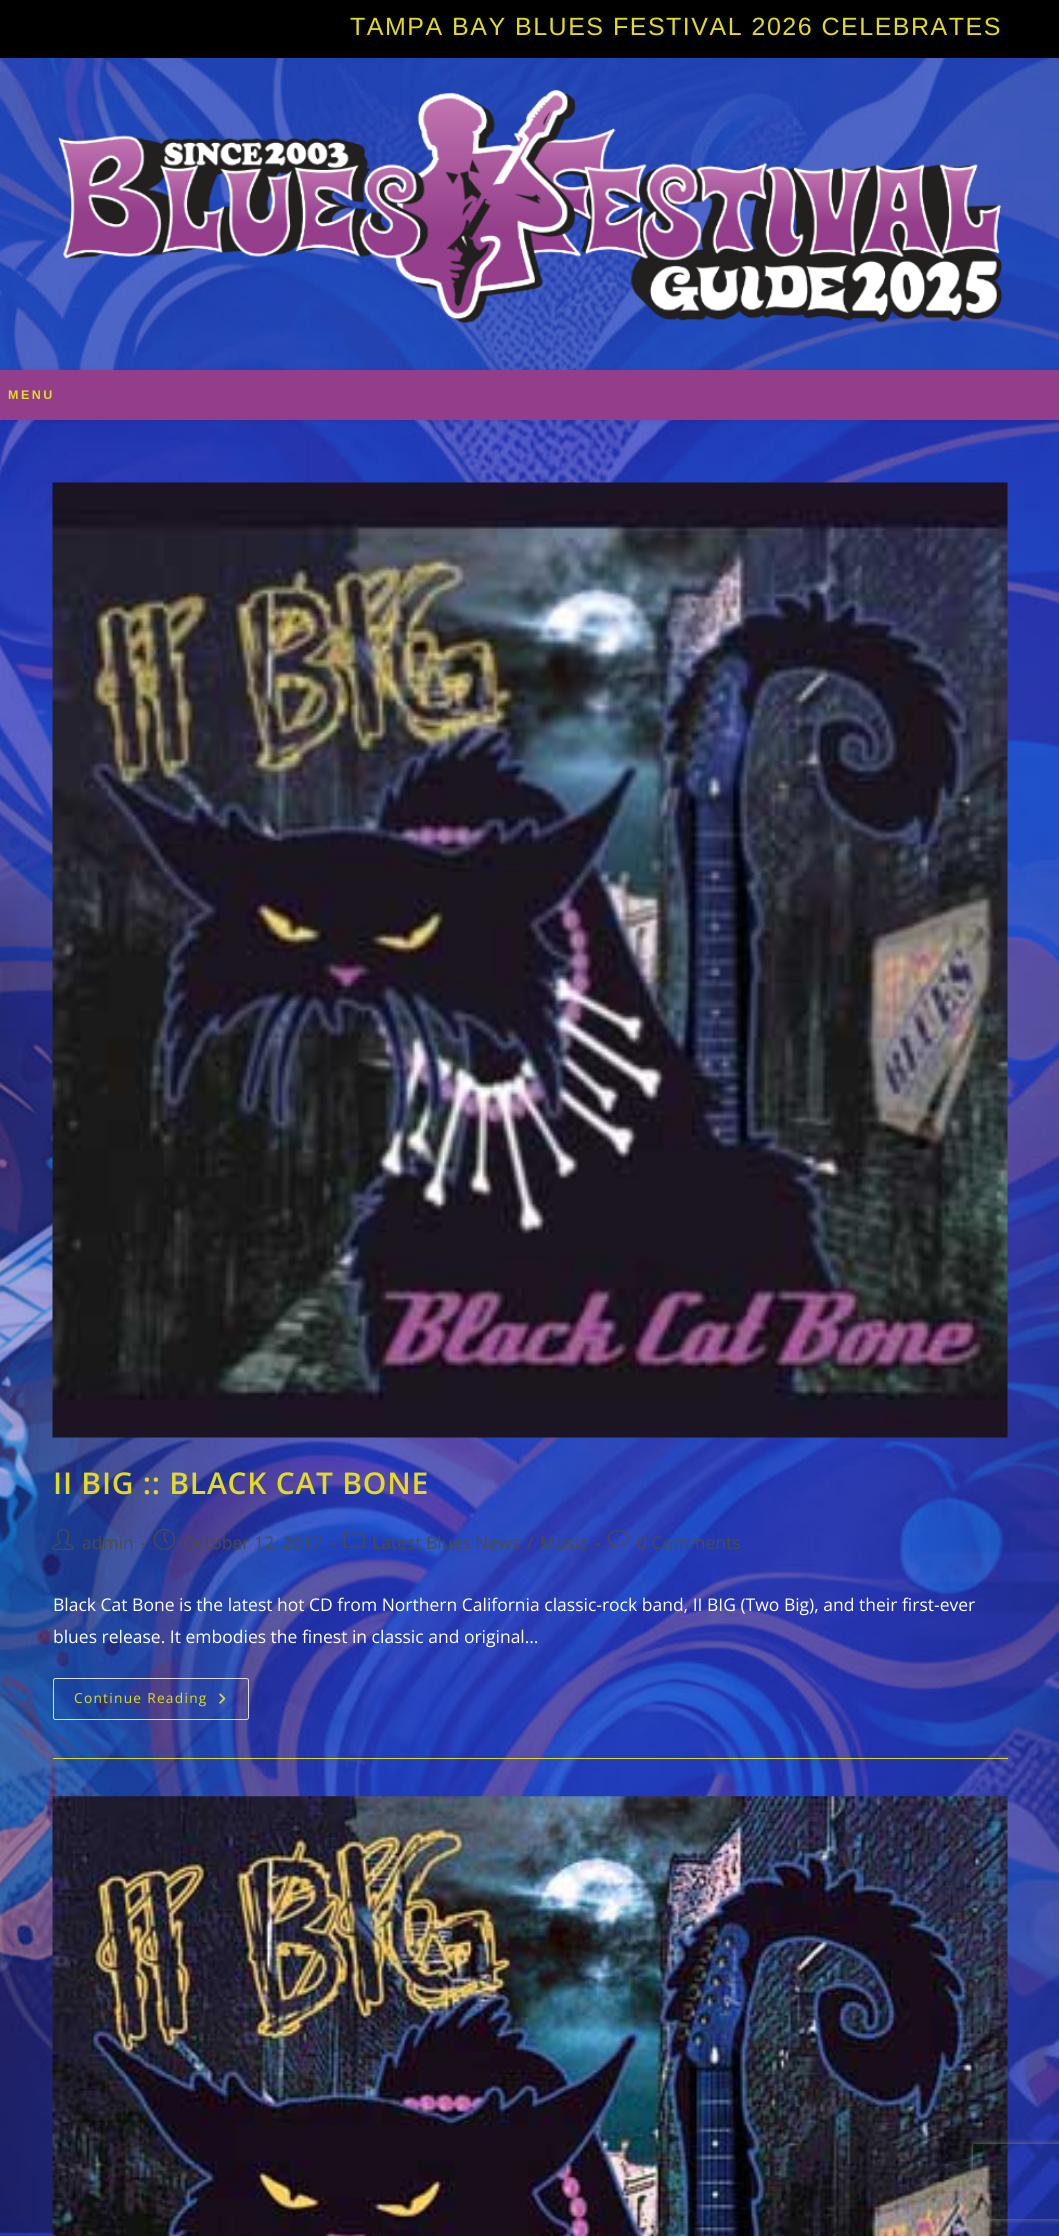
import math
import cairo

surface = cairo.ImageSurface(cairo.FORMAT_RGB24, 1059, 2236)
cr = cairo.Context(surface)
options = cairo.FontOptions()
options.set_hint_metrics(cairo.HINT_METRICS_OFF)
options.set_hint_style(cairo.HINT_STYLE_NONE)
cr.set_font_options(options)
cr.set_miter_limit(4)


def rgb(code):
    cr.set_source_rgb(*(v / 255 for v in bytes.fromhex(code[-6:])))


def tracked(x, y, s, letter, word):
    cr.move_to(x, y)
    for ch in s:
        cr.show_text(ch)
        cr.rel_move_to(letter + word * (ch == ' '), 0)


def rrect(x, y, w, h, r):
    cr.new_sub_path()
    for i, (u, v) in enumerate([(x + w - r, y + h - r), (x + r, y + h - r), (x + r, y + r), (x + w - r, y + r)]):
        cr.arc(u, v, r, i * math.pi / 2, (i + 1) * math.pi / 2)
    cr.close_path()


def soft_shadow(x, y, w, h, r, blur, alpha):
    cr.push_group_with_content(cairo.CONTENT_ALPHA)
    cr.set_operator(cairo.OPERATOR_SOURCE)
    for i in range(15, -16, -2):
        e = blur * i / 6
        if min(w, h) + 2 * e > 0:
            cr.set_source_rgba(0, 0, 0, alpha * math.erfc((i - 1) / 8.5) / 2)
            rrect(x - e, y - e, w + 2 * e, h + 2 * e, max(0, min(r + e + blur * .6, min(w, h) / 2 + e)))
            cr.fill()
    cr.mask(cr.pop_group())


def image(path, x, y, w, h):
    cr.save()
    cr.set_source_surface(cairo.ImageSurface.create_from_png(path), x, y)
    cr.rectangle(x, y, w, h)
    cr.fill()
    cr.restore()


rgb("#ffffff")
cr.paint()
image("img/1.png", 0, 420, 1059, 1816)
rgb("#000000")
cr.rectangle(0, 0, 1059, 58)
cr.fill()
image("img/2.png", 0, 58, 1059, 312)
image("img/3.png", 58, 89, 945, 234)
rgb("#000000")
soft_shadow(0, 371, 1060, 50, 0, 3, 0.1)
rgb("#943d8a")
cr.rectangle(0, 370, 1059, 50)
cr.fill()
rgb("#e2db23")
cr.rectangle(53, 1758, 955, 1)
cr.fill()
image("img/4.png", 52, 482, 956, 956)
image("img/5.png", 52, 1528, 22, 23)
image("img/6.png", 153, 1528, 22, 23)
image("img/7.png", 343, 1531, 22, 17)
image("img/8.png", 607, 1530, 22, 19)
rrect(53.5, 1678.5, 195, 41, 2)
rgb("#dddddd")
cr.set_line_width(1)
cr.stroke()
image("img/9.png", 219, 1693, 7, 11)
image("img/10.png", 52, 1796, 956, 440)
cr.save()
cr.set_fill_rule(cairo.FILL_RULE_EVEN_ODD)
cr.new_path()
cr.move_to(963, 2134)
cr.line_to(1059, 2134)
cr.line_to(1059, 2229)
cr.line_to(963, 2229)
cr.close_path()
cr.move_to(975.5, 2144)
cr.line_to(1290.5, 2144)
cr.curve_to(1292, 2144, 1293, 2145, 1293, 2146.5)
cr.line_to(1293, 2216.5)
cr.curve_to(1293, 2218, 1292, 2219, 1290.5, 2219)
cr.line_to(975.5, 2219)
cr.curve_to(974, 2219, 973, 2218, 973, 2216.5)
cr.line_to(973, 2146.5)
cr.curve_to(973, 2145, 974, 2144, 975.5, 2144)
cr.close_path()
cr.clip()
rgb("#808080")
soft_shadow(973, 2144, 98, 75, 2.5, 3, 1)
cr.restore()
cr.select_font_face("Liberation Sans")
cr.set_font_size(25)
rgb("#e2db23")
tracked(350, 35, "TAMPA BAY BLUES FESTIVAL 2026 CELEBRATES", 1.5, 0)
cr.select_font_face("Liberation Sans", cairo.FONT_SLANT_NORMAL, cairo.FONT_WEIGHT_BOLD)
cr.set_font_size(12.5)
tracked(8, 399, "MENU", 2.5, 0)
cr.select_font_face("Open Sans SemiBold")
cr.set_font_size(30)
tracked(53, 1494, "II BIG :: BLACK CAT BONE", 0.75, 0)
cr.select_font_face("Open Sans")
cr.set_font_size(17.5)
rgb("#4a4a4a")
cr.move_to(82, 1549)
cr.show_text("admin")
cr.select_font_face("Open Sans", cairo.FONT_SLANT_NORMAL, cairo.FONT_WEIGHT_BOLD)
cr.move_to(141, 1549)
cr.show_text("-")
cr.select_font_face("Open Sans")
cr.move_to(183, 1549)
cr.show_text("October 12, 2017")
cr.select_font_face("Open Sans", cairo.FONT_SLANT_NORMAL, cairo.FONT_WEIGHT_BOLD)
cr.move_to(331, 1549)
cr.show_text("-")
cr.select_font_face("Open Sans")
for x, y, s in [
    (372, 1549, "Latest Blues News"),
    (527, 1549, "/"),
    (540, 1549, "Music"),
]:
    cr.move_to(x, y)
    cr.show_text(s)
cr.select_font_face("Open Sans", cairo.FONT_SLANT_NORMAL, cairo.FONT_WEIGHT_BOLD)
cr.move_to(595, 1549)
cr.show_text("-")
cr.select_font_face("Open Sans")
cr.move_to(637, 1549)
cr.show_text("0 Comments")
rgb("#ffffff")
cr.move_to(53, 1611)
cr.show_text("Black Cat Bone is the latest hot CD from Northern California classic-rock band, II BIG (Two Big), and their first-ever")
cr.move_to(53, 1643)
cr.show_text("blues release. It embodies the finest in classic and original…")
cr.set_font_size(13.75)
rgb("#e2db23")
tracked(74, 1703, "Continue Reading", 1.25, 0)
surface.write_to_png("page.png")
